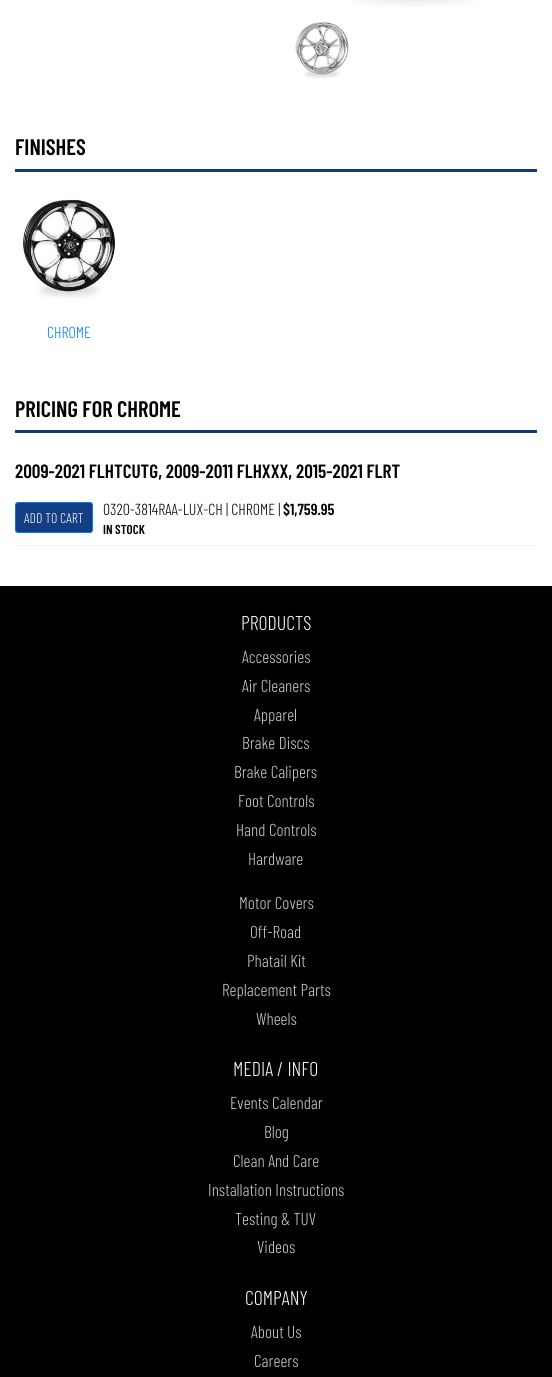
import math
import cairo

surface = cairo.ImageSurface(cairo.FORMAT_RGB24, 552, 1377)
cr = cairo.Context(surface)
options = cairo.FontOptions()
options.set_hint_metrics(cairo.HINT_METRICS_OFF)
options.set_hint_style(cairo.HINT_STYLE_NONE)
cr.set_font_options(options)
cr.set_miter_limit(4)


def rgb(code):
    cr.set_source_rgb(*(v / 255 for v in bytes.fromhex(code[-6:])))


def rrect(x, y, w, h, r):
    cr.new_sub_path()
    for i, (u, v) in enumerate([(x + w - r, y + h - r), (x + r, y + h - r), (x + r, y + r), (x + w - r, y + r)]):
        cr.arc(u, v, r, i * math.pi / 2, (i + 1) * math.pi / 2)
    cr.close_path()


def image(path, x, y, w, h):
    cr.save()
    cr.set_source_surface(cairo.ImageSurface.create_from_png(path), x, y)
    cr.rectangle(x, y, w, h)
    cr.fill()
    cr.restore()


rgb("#000000")
cr.paint()
rgb("#ffffff")
cr.rectangle(0, 0, 552, 586)
cr.fill()
image("img/1.png", 353, 0, 121, 7)
image("img/2.png", 295, 22, 54, 57)
rgb("#123876")
cr.rectangle(15, 169, 522, 3)
cr.fill()
image("img/3.png", 22, 200, 94, 99)
cr.rectangle(15, 430, 522, 3)
cr.fill()
rgb("#efefef")
cr.rectangle(15, 545, 522, 1)
cr.fill()
rgb("#143e83")
rrect(15.5, 502.5, 77, 30, 2.5)
cr.fill_preserve()
rgb("#007bff")
cr.set_line_width(1)
cr.stroke()
cr.select_font_face("Barlow Condensed SemiBold")
cr.set_font_size(22.5)
rgb("#000000")
cr.move_to(15, 155)
cr.show_text("FINISHES")
cr.select_font_face("Barlow Condensed Light")
cr.set_font_size(16)
rgb("#007bff")
cr.move_to(47, 338)
cr.show_text("CHROME")
cr.select_font_face("Barlow Condensed SemiBold")
cr.set_font_size(22.5)
rgb("#000000")
cr.move_to(15, 417)
cr.show_text("PRICING FOR CHROME")
cr.set_font_size(19.2)
cr.move_to(15, 478)
cr.show_text("2009-2021 FLHTCUTG, 2009-2011 FLHXXX, 2015-2021 FLRT")
cr.select_font_face("Barlow Condensed Light")
cr.set_font_size(14)
rgb("#ffffff")
cr.move_to(24, 523)
cr.show_text("ADD TO CART")
cr.set_font_size(16)
rgb("#000000")
cr.move_to(103, 515)
cr.show_text("0320-3814RAA-LUX-CH | CHROME |")
cr.select_font_face("Barlow Condensed SemiBold")
cr.move_to(283, 515)
cr.show_text("$1,759.95")
cr.set_font_size(13)
cr.move_to(103, 534)
cr.show_text("IN STOCK")
cr.select_font_face("Barlow Condensed Light")
cr.set_font_size(20)
rgb("#ffffff")
cr.move_to(241, 630)
cr.show_text("PRODUCTS")
cr.set_font_size(17.25)
rgb("#cccccc")
for x, y, s in [
    (242, 663, "Accessories"),
    (242, 692, "Air Cleaners"),
    (254, 721, "Apparel"),
    (242, 749, "Brake Discs"),
    (234, 778, "Brake Calipers"),
    (238, 807, "Foot Controls"),
    (236, 836, "Hand Controls"),
    (248, 865, "Hardware"),
    (239, 909, "Motor Covers"),
    (250, 938, "Off-Road"),
    (247, 967, "Phatail Kit"),
    (222, 996, "Replacement Parts"),
    (256, 1025, "Wheels"),
]:
    cr.move_to(x, y)
    cr.show_text(s)
cr.set_font_size(20)
rgb("#ffffff")
cr.move_to(233, 1076)
cr.show_text("MEDIA / INFO")
cr.set_font_size(17.25)
rgb("#cccccc")
for x, y, s in [
    (230, 1109, "Events Calendar"),
    (264, 1138, "Blog"),
    (233, 1167, "Clean And Care"),
    (208, 1196, "Installation Instructions"),
    (235, 1225, "Testing & TUV"),
    (257, 1253, "Videos"),
]:
    cr.move_to(x, y)
    cr.show_text(s)
cr.set_font_size(20)
rgb("#ffffff")
cr.move_to(245, 1305)
cr.show_text("COMPANY")
cr.set_font_size(17.25)
rgb("#cccccc")
cr.move_to(251, 1338)
cr.show_text("About Us")
cr.move_to(254, 1367)
cr.show_text("Careers")
surface.write_to_png("page.png")
